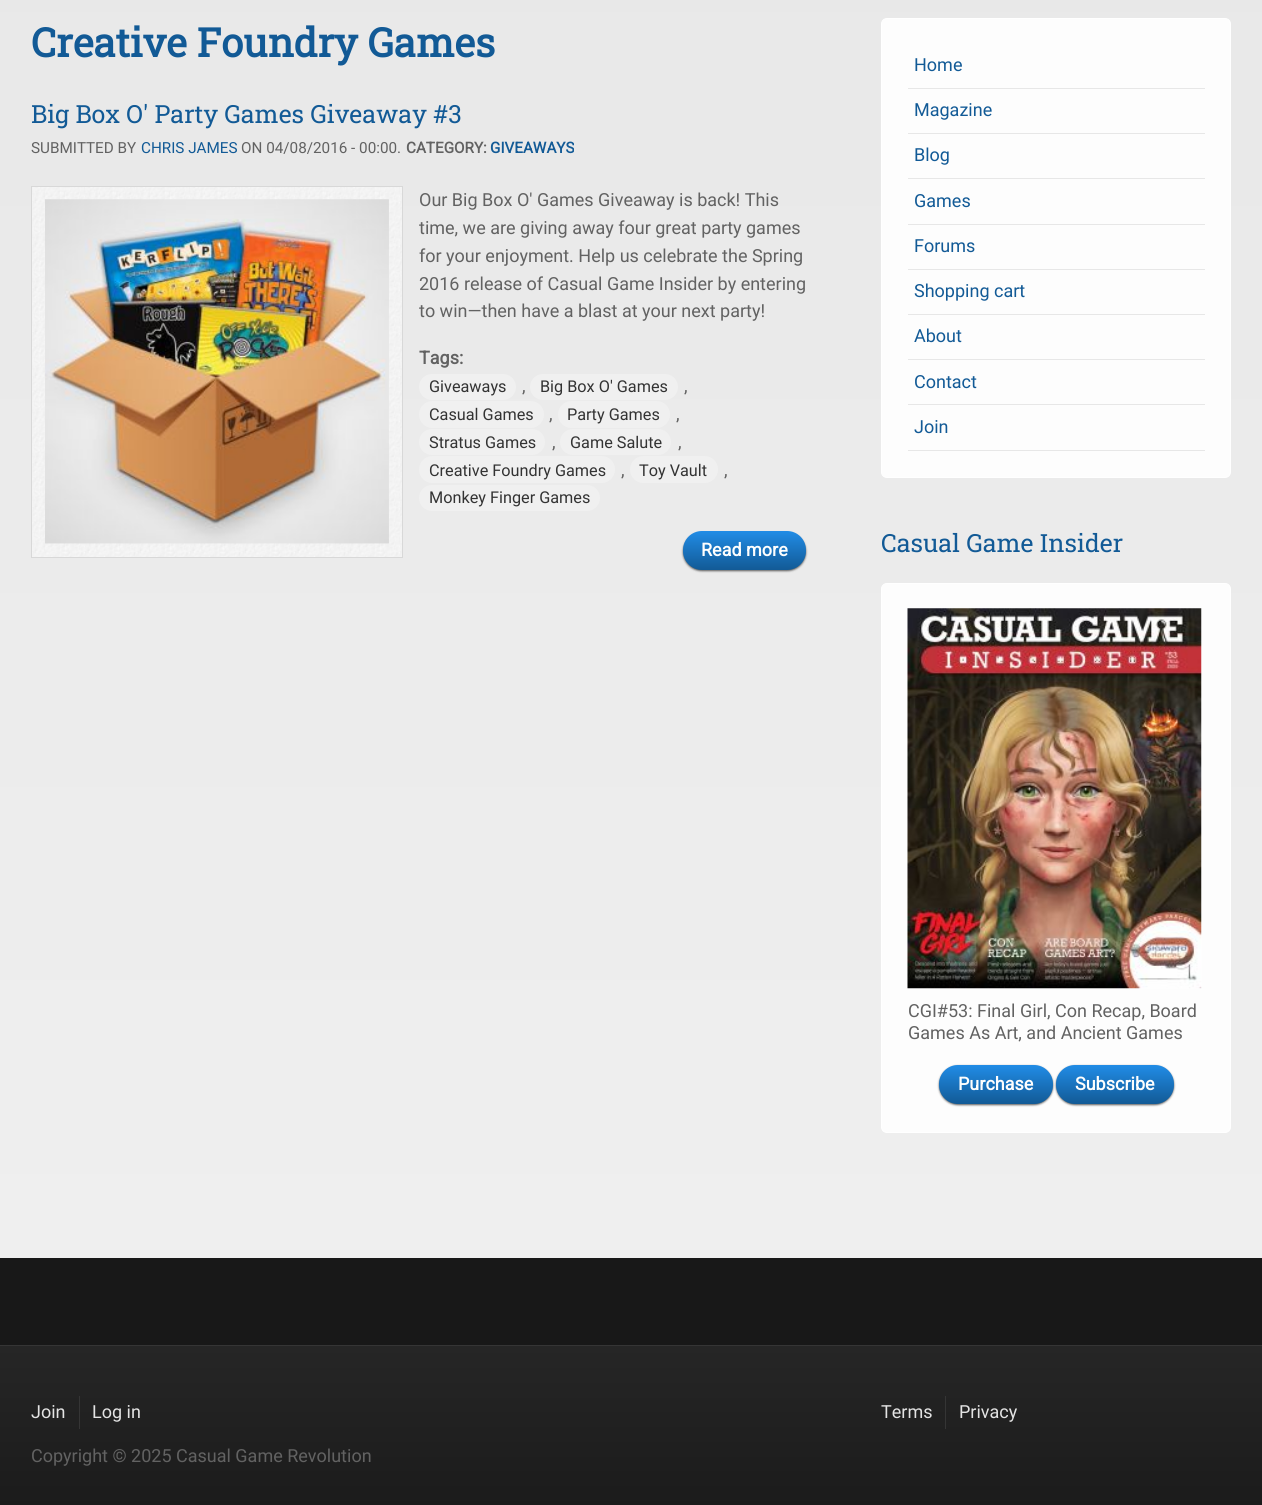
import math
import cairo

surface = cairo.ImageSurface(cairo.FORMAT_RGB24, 1262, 1505)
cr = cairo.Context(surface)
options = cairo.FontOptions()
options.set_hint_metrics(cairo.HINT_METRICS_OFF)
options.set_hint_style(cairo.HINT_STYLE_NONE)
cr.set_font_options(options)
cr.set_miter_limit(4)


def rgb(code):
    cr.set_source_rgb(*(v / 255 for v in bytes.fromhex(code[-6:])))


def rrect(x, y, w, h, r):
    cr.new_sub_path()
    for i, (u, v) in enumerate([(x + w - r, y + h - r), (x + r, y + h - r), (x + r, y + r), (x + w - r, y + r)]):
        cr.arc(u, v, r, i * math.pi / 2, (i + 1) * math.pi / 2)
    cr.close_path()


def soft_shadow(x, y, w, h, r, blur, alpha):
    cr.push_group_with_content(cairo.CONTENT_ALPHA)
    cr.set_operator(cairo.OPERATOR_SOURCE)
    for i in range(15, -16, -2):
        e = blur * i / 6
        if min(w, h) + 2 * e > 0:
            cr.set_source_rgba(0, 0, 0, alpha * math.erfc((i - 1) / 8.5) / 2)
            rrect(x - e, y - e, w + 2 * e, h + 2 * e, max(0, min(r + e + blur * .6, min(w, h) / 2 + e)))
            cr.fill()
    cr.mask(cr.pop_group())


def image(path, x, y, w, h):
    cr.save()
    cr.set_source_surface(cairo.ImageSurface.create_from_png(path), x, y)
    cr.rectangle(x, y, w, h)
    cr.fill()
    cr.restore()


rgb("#ffffff")
cr.paint()
gradient = cairo.LinearGradient(631, -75, 631, 1258)
gradient.add_color_stop_rgba(0, 0.91, 0.91, 0.91, 1)
gradient.add_color_stop_rgba(1, 0.937, 0.937, 0.937, 1)
cr.set_source(gradient)
cr.rectangle(0, 0, 1262, 1258)
cr.fill()
image("img/1.png", 32, 187, 370, 370)
cr.rectangle(31.5, 186.5, 371, 371)
rgb("#d8d8d8")
cr.set_line_width(1)
cr.stroke()
image("img/2.png", 45, 199, 344, 345)
rgb("#f0f0f0")
rrect(419, 374, 97, 26, 13)
cr.fill()
rrect(530, 374, 148, 26, 13)
cr.fill()
rrect(419, 401, 125, 27, 13.5)
cr.fill()
rrect(558, 401, 112, 27, 13.5)
cr.fill()
rrect(419, 429, 126, 26, 13)
cr.fill()
rrect(560, 429, 111, 26, 13)
cr.fill()
rrect(419, 456, 196, 27, 13.5)
cr.fill()
rrect(630, 456, 88, 27, 13.5)
cr.fill()
rrect(419, 485, 181, 26, 13)
cr.fill()
rgb("#5d5d5d")
soft_shadow(683, 533, 123, 38, 19, 1, 1)
gradient = cairo.LinearGradient(744, 531, 744, 570)
gradient.add_color_stop_rgba(0, 0.129, 0.549, 0.902, 1)
gradient.add_color_stop_rgba(1, 0.071, 0.353, 0.588, 1)
cr.set_source(gradient)
rrect(683, 531, 123, 39, 19)
cr.fill()
rgb("#fdfdfd")
rrect(881.5, 18.5, 349, 459, 5.5)
cr.fill_preserve()
rgb("#ffffff")
cr.stroke()
for x, y, w, h, color in [
    (908, 88, 297, 1, "#e7e7e7"),
    (908, 133, 297, 1, "#e7e7e7"),
    (908, 178, 297, 1, "#e7e7e7"),
    (908, 224, 297, 1, "#e7e7e7"),
    (908, 269, 297, 1, "#e7e7e7"),
    (908, 314, 297, 1, "#e7e7e7"),
    (908, 359, 297, 1, "#e7e7e7"),
    (908, 404, 297, 1, "#e7e7e7"),
    (908, 450, 297, 1, "#e7e7e7"),
]:
    rgb(color)
    cr.rectangle(x, y, w, h)
    cr.fill()
rgb("#fdfdfd")
rrect(881.5, 583.5, 349, 549, 5.5)
cr.fill_preserve()
rgb("#ffffff")
cr.stroke()
image("img/3.png", 907, 608, 295, 381)
rgb("#5d5d5d")
soft_shadow(939, 1066, 114, 39, 19, 1, 1)
gradient = cairo.LinearGradient(996, 1065, 996, 1104)
gradient.add_color_stop_rgba(0, 0.129, 0.549, 0.902, 1)
gradient.add_color_stop_rgba(1, 0.071, 0.353, 0.588, 1)
cr.set_source(gradient)
rrect(939, 1065, 114, 39, 19)
cr.fill()
rgb("#5d5d5d")
soft_shadow(1056, 1066, 118, 39, 19, 1, 1)
gradient = cairo.LinearGradient(1115, 1065, 1115, 1104)
gradient.add_color_stop_rgba(0, 0.129, 0.549, 0.902, 1)
gradient.add_color_stop_rgba(1, 0.071, 0.353, 0.588, 1)
cr.set_source(gradient)
rrect(1056, 1065, 118, 39, 19)
cr.fill()
rgb("#181818")
cr.rectangle(0, 1258, 1262, 87)
cr.fill()
gradient = cairo.LinearGradient(631, 1346, 631, 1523)
gradient.add_color_stop_rgba(0, 0.149, 0.149, 0.149, 1)
gradient.add_color_stop_rgba(1, 0.102, 0.102, 0.102, 1)
cr.set_source(gradient)
cr.rectangle(0, 1346, 1262, 159)
cr.fill()
for x, y, w, h, color in [
    (0, 1345, 1262, 1, "#353535"),
    (79, 1396, 1, 33, "#353535"),
    (945, 1396, 1, 33, "#353535"),
]:
    rgb(color)
    cr.rectangle(x, y, w, h)
    cr.fill()
cr.select_font_face("Roboto Slab", cairo.FONT_SLANT_NORMAL, cairo.FONT_WEIGHT_BOLD)
cr.set_font_size(40)
rgb("#125a96")
cr.move_to(31, 57)
cr.show_text("Creative Foundry Games")
cr.select_font_face("Roboto Slab")
cr.set_font_size(25)
cr.move_to(31, 123)
cr.show_text("Big Box O' Party Games Giveaway #3")
cr.select_font_face("Roboto")
cr.set_font_size(15.25)
rgb("#626262")
cr.move_to(31, 153)
cr.show_text("SUBMITTED BY")
rgb("#125a96")
cr.move_to(141, 153)
cr.show_text("CHRIS JAMES")
rgb("#626262")
cr.move_to(241, 153)
cr.show_text("ON 04/08/2016 - 00:00.")
cr.select_font_face("Roboto", cairo.FONT_SLANT_NORMAL, cairo.FONT_WEIGHT_BOLD)
cr.move_to(406, 153)
cr.show_text("CATEGORY:")
rgb("#125a96")
cr.move_to(490, 153)
cr.show_text("GIVEAWAYS")
cr.select_font_face("Roboto")
cr.set_font_size(18)
rgb("#626262")
for x, y, s in [
    (419, 206, "Our Big Box O' Games Giveaway is back! This"),
    (419, 234, "time, we are giving away four great party games"),
    (419, 262, "for your enjoyment. Help us celebrate the Spring"),
    (419, 290, "2016 release of Casual Game Insider by entering"),
    (419, 317, "to win—then have a blast at your next party!"),
]:
    cr.move_to(x, y)
    cr.show_text(s)
cr.select_font_face("Roboto", cairo.FONT_SLANT_NORMAL, cairo.FONT_WEIGHT_BOLD)
cr.move_to(419, 364)
cr.show_text("Tags:")
cr.select_font_face("Roboto")
cr.set_font_size(16.25)
rgb("#333333")
cr.move_to(429, 392)
cr.show_text("Giveaways")
cr.set_font_size(18)
rgb("#626262")
cr.move_to(522, 392)
cr.show_text(",")
cr.set_font_size(16.25)
rgb("#333333")
cr.move_to(540, 392)
cr.show_text("Big Box O' Games")
cr.set_font_size(18)
rgb("#626262")
cr.move_to(684, 392)
cr.show_text(",")
cr.set_font_size(16.25)
rgb("#333333")
cr.move_to(429, 420)
cr.show_text("Casual Games")
cr.set_font_size(18)
rgb("#626262")
cr.move_to(549, 420)
cr.show_text(",")
cr.set_font_size(16.25)
rgb("#333333")
cr.move_to(567, 420)
cr.show_text("Party Games")
cr.set_font_size(18)
rgb("#626262")
cr.move_to(676, 420)
cr.show_text(",")
cr.set_font_size(16.25)
rgb("#333333")
cr.move_to(429, 448)
cr.show_text("Stratus Games")
cr.set_font_size(18)
rgb("#626262")
cr.move_to(552, 448)
cr.show_text(",")
cr.set_font_size(16.25)
rgb("#333333")
cr.move_to(570, 448)
cr.show_text("Game Salute")
cr.set_font_size(18)
rgb("#626262")
cr.move_to(678, 448)
cr.show_text(",")
cr.set_font_size(16.25)
rgb("#333333")
cr.move_to(429, 476)
cr.show_text("Creative Foundry Games")
cr.set_font_size(18)
rgb("#626262")
cr.move_to(621, 476)
cr.show_text(",")
cr.set_font_size(16.25)
rgb("#333333")
cr.move_to(639, 476)
cr.show_text("Toy Vault")
cr.set_font_size(18)
rgb("#626262")
cr.move_to(724, 476)
cr.show_text(",")
cr.set_font_size(16.25)
rgb("#333333")
cr.move_to(429, 503)
cr.show_text("Monkey Finger Games")
cr.select_font_face("Roboto", cairo.FONT_SLANT_NORMAL, cairo.FONT_WEIGHT_BOLD)
cr.set_font_size(18)
rgb("#fefefe")
cr.move_to(701, 556)
cr.show_text("Read more")
cr.select_font_face("Roboto")
rgb("#125a96")
for x, y, s in [
    (914, 71, "Home"),
    (914, 116, "Magazine"),
    (914, 161, "Blog"),
    (914, 207, "Games"),
    (914, 252, "Forums"),
    (914, 297, "Shopping cart"),
    (914, 342, "About"),
    (914, 388, "Contact"),
    (914, 433, "Join"),
]:
    cr.move_to(x, y)
    cr.show_text(s)
cr.select_font_face("Roboto Slab")
cr.set_font_size(25)
cr.move_to(881, 552)
cr.show_text("Casual Game Insider")
cr.select_font_face("Roboto")
cr.set_font_size(18)
rgb("#626262")
cr.move_to(908, 1017)
cr.show_text("CGI#53: Final Girl, Con Recap, Board")
cr.move_to(908, 1039)
cr.show_text("Games As Art, and Ancient Games")
cr.select_font_face("Roboto", cairo.FONT_SLANT_NORMAL, cairo.FONT_WEIGHT_BOLD)
rgb("#fefefe")
cr.move_to(958, 1090)
cr.show_text("Purchase")
cr.move_to(1075, 1090)
cr.show_text("Subscribe")
cr.select_font_face("Roboto")
rgb("#e4e4e4")
cr.move_to(31, 1418)
cr.show_text("Join")
cr.move_to(92, 1418)
cr.show_text("Log in")
rgb("#626262")
cr.move_to(31, 1462)
cr.show_text("Copyright © 2025 Casual Game Revolution")
rgb("#e4e4e4")
cr.move_to(881, 1418)
cr.show_text("Terms")
cr.move_to(959, 1418)
cr.show_text("Privacy")
surface.write_to_png("page.png")
